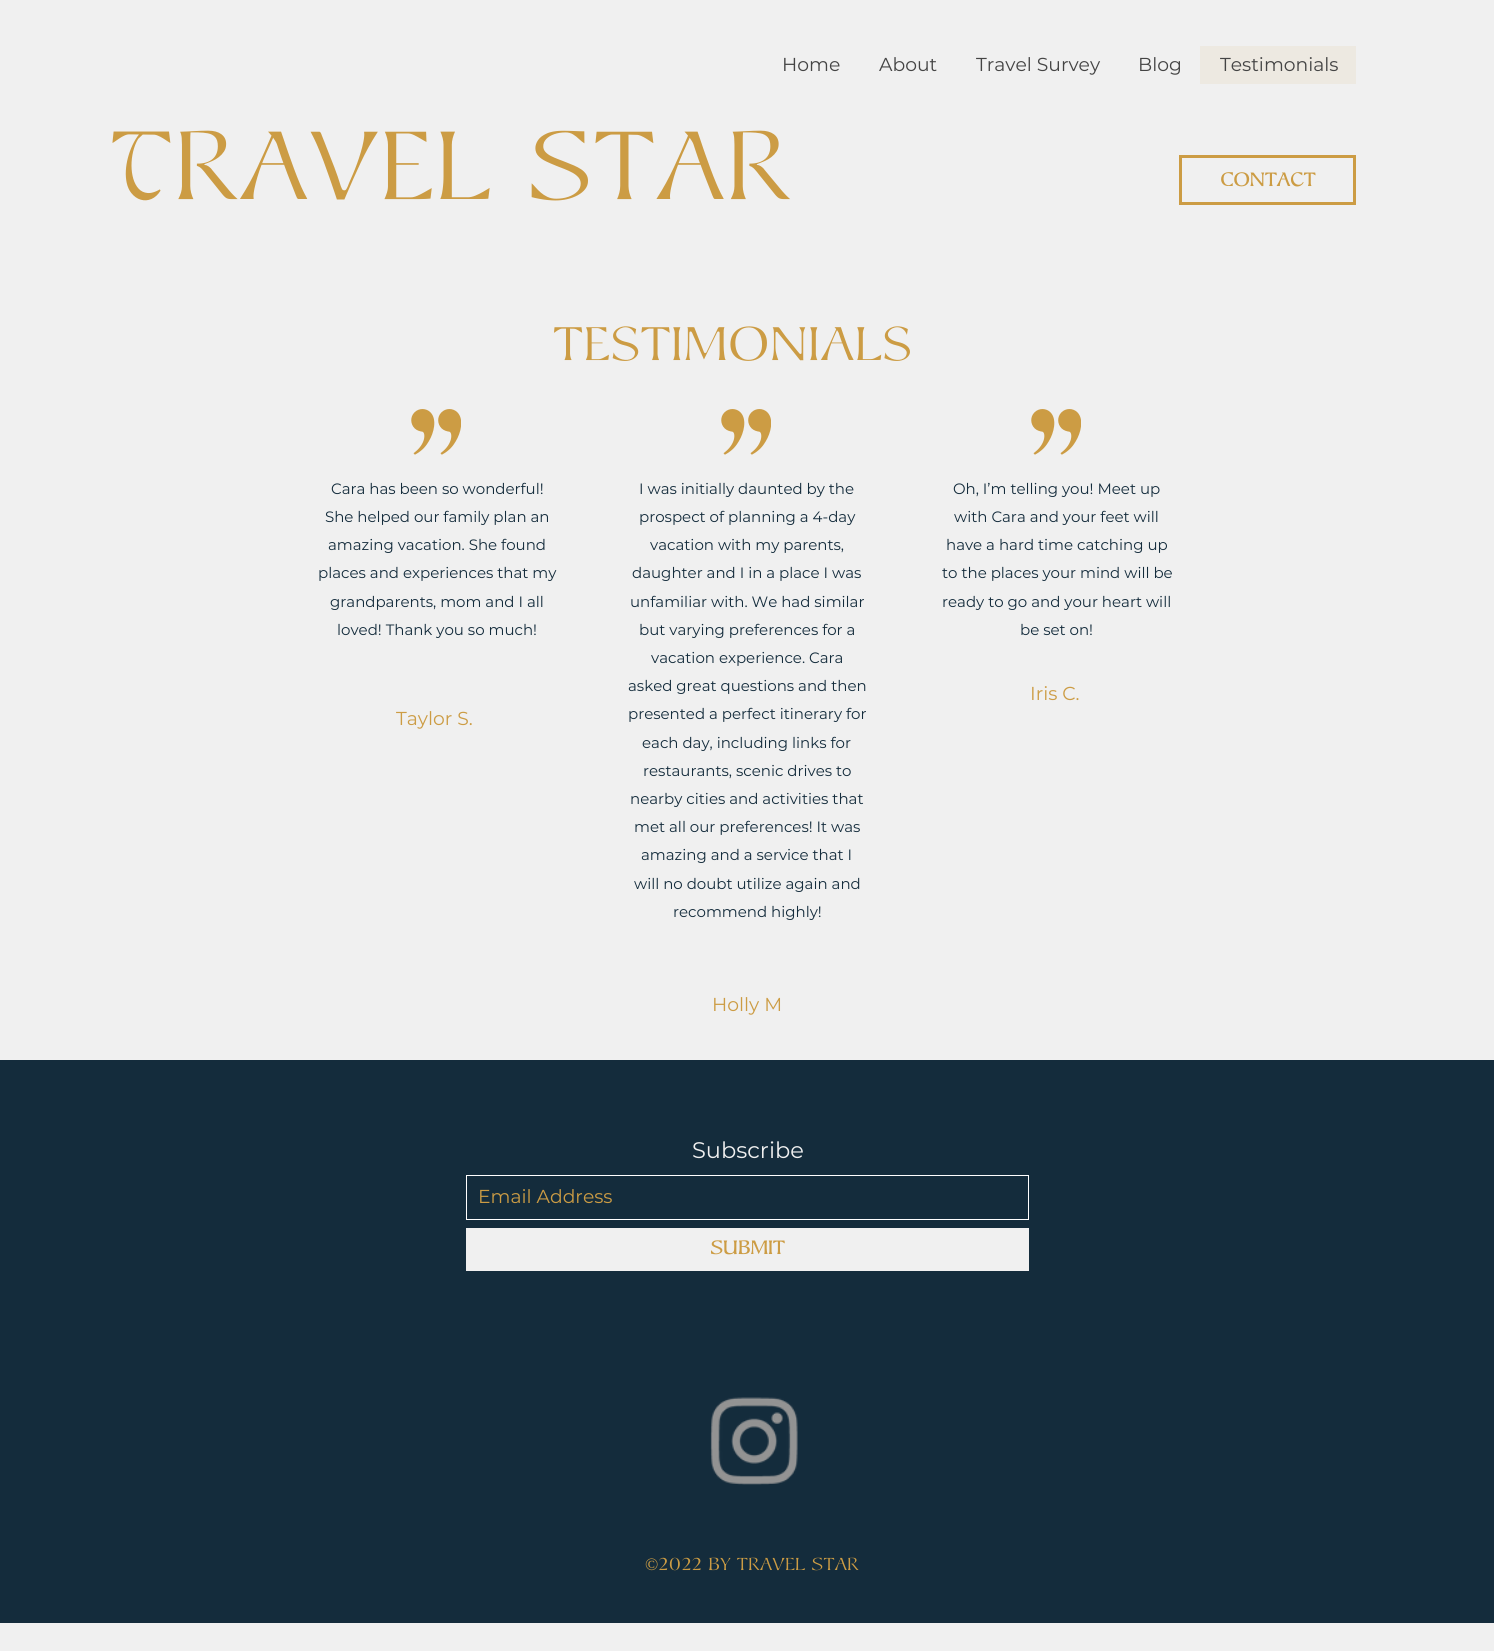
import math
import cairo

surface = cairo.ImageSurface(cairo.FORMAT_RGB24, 1494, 1651)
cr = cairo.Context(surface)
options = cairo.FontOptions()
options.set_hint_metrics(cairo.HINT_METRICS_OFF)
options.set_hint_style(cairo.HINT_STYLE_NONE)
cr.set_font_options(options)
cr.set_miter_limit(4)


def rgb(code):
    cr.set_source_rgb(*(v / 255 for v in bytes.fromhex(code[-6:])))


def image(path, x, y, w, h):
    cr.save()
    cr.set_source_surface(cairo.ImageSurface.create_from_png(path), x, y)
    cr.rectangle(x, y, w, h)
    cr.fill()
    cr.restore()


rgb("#f0f0f0")
cr.paint()
rgb("#ede9e1")
cr.rectangle(1200, 46, 156, 38)
cr.fill()
cr.rectangle(1180.5, 156.5, 174, 47)
rgb("#cc9c44")
cr.set_line_width(3)
cr.stroke()
image("img/1.png", 411, 409, 50, 46)
image("img/1.png", 721, 409, 50, 46)
image("img/1.png", 1031, 409, 50, 46)
rgb("#142c3c")
cr.rectangle(0, 1060, 1494, 563)
cr.fill()
cr.rectangle(466.5, 1175.5, 562, 44)
rgb("#ffffff")
cr.set_line_width(1)
cr.stroke()
rgb("#f0f0f0")
cr.rectangle(466, 1228, 563, 43)
cr.fill()
image("img/2.png", 710, 1397, 88, 88)
cr.select_font_face("Montserrat")
cr.set_font_size(18.75)
rgb("#444444")
for x, y, s in [
    (782, 71, "Home"),
    (879, 71, "About"),
    (976, 71, "Travel Survey"),
    (1138, 71, "Blog"),
    (1220, 71, "Testimonials"),
]:
    cr.move_to(x, y)
    cr.show_text(s)
cr.select_font_face("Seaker")
cr.set_font_size(97.5)
rgb("#cc9c44")
cr.move_to(110, 199)
cr.show_text("Travel Star")
cr.select_font_face("Seaker", cairo.FONT_SLANT_NORMAL, cairo.FONT_WEIGHT_BOLD)
cr.set_font_size(18.75)
cr.move_to(1220, 186)
cr.show_text("Contact")
cr.select_font_face("Seaker")
cr.set_font_size(47.5)
cr.move_to(553, 360)
cr.show_text("testimonials")
cr.select_font_face("Montserrat")
cr.set_font_size(15)
rgb("#142c3c")
for x, y, s in [
    (331, 494, "Cara has been so wonderful!"),
    (325, 522, "She helped our family plan an"),
    (328, 550, "amazing vacation. She found"),
    (318, 578, "places and experiences that my"),
    (330, 607, "grandparents, mom and I all"),
    (337, 635, "loved! Thank you so much!"),
]:
    cr.move_to(x, y)
    cr.show_text(s)
cr.set_font_size(18.75)
rgb("#cc9c44")
cr.move_to(396, 725)
cr.show_text("Taylor S.")
cr.set_font_size(15)
rgb("#142c3c")
for x, y, s in [
    (639, 494, "I was initially daunted by the"),
    (639, 522, "prospect of planning a 4-day"),
    (650, 550, "vacation with my parents,"),
    (632, 578, "daughter and I in a place I was"),
    (630, 607, "unfamiliar with. We had similar"),
    (639, 635, "but varying preferences for a"),
    (651, 663, "vacation experience. Cara"),
    (628, 691, "asked great questions and then"),
    (628, 719, "presented a perfect itinerary for"),
    (642, 748, "each day, including links for"),
    (643, 776, "restaurants, scenic drives to"),
    (630, 804, "nearby cities and activities that"),
    (634, 832, "met all our preferences! It was"),
    (641, 860, "amazing and a service that I"),
    (634, 889, "will no doubt utilize again and"),
    (673, 917, "recommend highly!"),
]:
    cr.move_to(x, y)
    cr.show_text(s)
cr.set_font_size(18.75)
rgb("#cc9c44")
cr.move_to(712, 1011)
cr.show_text("Holly M")
cr.set_font_size(15)
rgb("#142c3c")
for x, y, s in [
    (953, 494, "Oh, I’m telling you! Meet up"),
    (954, 522, "with Cara and your feet will"),
    (946, 550, "have a hard time catching up"),
    (942, 578, "to the places your mind will be"),
    (942, 607, "ready to go and your heart will"),
    (1020, 635, "be set on!"),
]:
    cr.move_to(x, y)
    cr.show_text(s)
cr.set_font_size(18.75)
rgb("#cc9c44")
cr.move_to(1030, 700)
cr.show_text("Iris C.")
cr.set_font_size(22.5)
rgb("#f0f0f0")
cr.move_to(692, 1158)
cr.show_text("Subscribe")
cr.set_font_size(18.75)
rgb("#cc9c44")
cr.move_to(478, 1203)
cr.show_text("Email Address")
cr.select_font_face("Seaker", cairo.FONT_SLANT_NORMAL, cairo.FONT_WEIGHT_BOLD)
cr.move_to(710, 1254)
cr.show_text("Submit")
cr.select_font_face("Liberation Serif")
cr.set_font_size(17.5)
cr.move_to(645, 1570)
cr.show_text("©")
cr.select_font_face("Seaker")
cr.move_to(658, 1570)
cr.show_text("2022 by travel Star")
surface.write_to_png("page.png")
